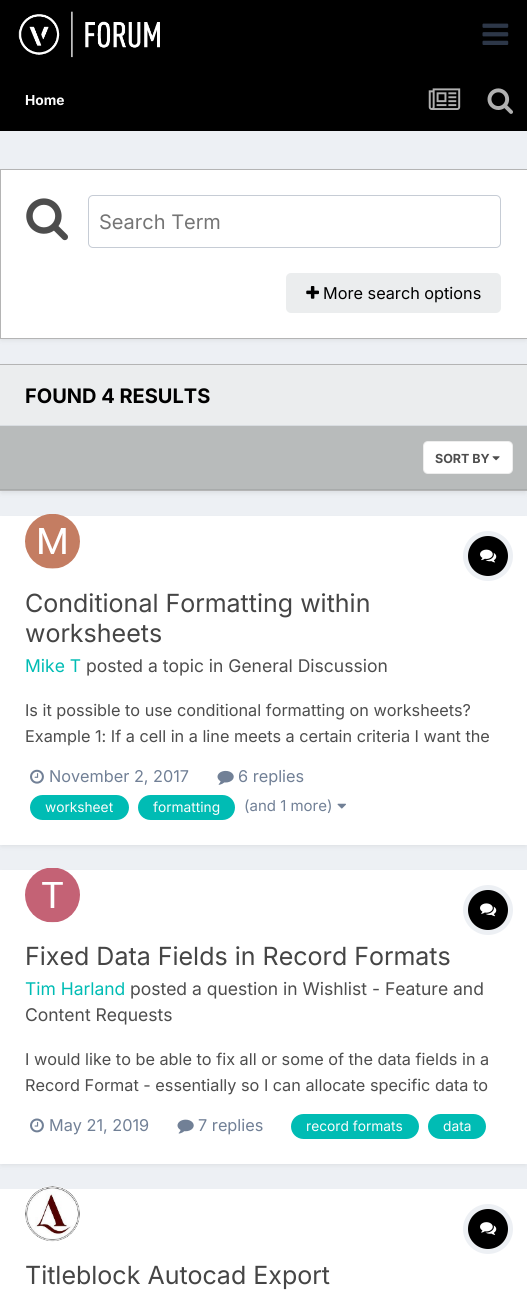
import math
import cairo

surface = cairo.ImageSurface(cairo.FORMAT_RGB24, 527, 1310)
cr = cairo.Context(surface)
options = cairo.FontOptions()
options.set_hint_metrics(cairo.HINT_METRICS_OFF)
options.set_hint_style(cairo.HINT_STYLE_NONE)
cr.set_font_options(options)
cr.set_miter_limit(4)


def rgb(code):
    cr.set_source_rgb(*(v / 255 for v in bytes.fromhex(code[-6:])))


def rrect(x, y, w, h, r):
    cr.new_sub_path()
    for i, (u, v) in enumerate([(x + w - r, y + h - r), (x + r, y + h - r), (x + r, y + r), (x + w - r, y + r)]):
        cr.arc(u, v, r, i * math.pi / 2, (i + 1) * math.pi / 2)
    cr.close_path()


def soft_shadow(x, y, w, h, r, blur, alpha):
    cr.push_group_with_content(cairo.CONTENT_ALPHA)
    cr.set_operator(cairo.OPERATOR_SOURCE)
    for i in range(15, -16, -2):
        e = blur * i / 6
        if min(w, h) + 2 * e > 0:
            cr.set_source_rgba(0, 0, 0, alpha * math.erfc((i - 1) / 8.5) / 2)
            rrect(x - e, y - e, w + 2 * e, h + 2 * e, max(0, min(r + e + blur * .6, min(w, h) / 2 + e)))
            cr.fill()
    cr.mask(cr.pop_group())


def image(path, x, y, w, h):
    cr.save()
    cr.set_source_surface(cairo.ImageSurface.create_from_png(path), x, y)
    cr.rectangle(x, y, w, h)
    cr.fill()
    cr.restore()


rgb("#edf0f4")
cr.paint()
rgb("#000000")
cr.rectangle(0, 0, 527, 131)
cr.fill()
image("img/1.png", 18, 11, 142, 47)
image("img/2.png", 482, 23, 27, 22)
image("img/3.png", 428, 88, 33, 22)
image("img/4.png", 487, 88, 26, 26)
rgb("#3b3b3b")
soft_shadow(1, 173, 525, 167, 0, 2.5, 0.1)
rgb("#ffffff")
cr.rectangle(0.5, 169.5, 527, 169)
cr.fill_preserve()
rgb("#b4b4b4")
cr.set_line_width(1)
cr.stroke()
image("img/5.png", 26, 198, 42, 43)
rrect(88.5, 195.5, 412, 52, 4.5)
rgb("#c6ccd5")
cr.stroke()
rgb("#ebedee")
rrect(286, 273, 215, 40, 5)
cr.fill()
image("img/6.png", 306, 286, 13, 13)
rgb("#3b3b3b")
soft_shadow(1, 368, 525, 125, 0, 2.5, 0.1)
for x, y, w, h, color in [
    (0, 364, 527, 1, "#b4b4b4"),
    (0, 490, 527, 1, "#b4b4b4"),
    (0, 365, 527, 60, "#ebedee"),
    (0, 425, 527, 1, "#d9dde1"),
    (0, 426, 527, 63, "#b8bbbb"),
    (0, 489, 527, 1, "#a8abab"),
]:
    rgb(color)
    cr.rectangle(x, y, w, h)
    cr.fill()
rgb("#ffffff")
rrect(423, 441, 90, 33, 5)
cr.fill()
image("img/7.png", 492, 456, 8, 5)
rrect(423.5, 441.5, 89, 32, 4.5)
cr.set_source_rgba(0.302, 0.302, 0.302, 0.1)
cr.stroke()
rgb("#3b3b3b")
soft_shadow(1, 520, 525, 326, 0, 2.5, 0.1)
rgb("#ffffff")
cr.rectangle(0, 516, 527, 329)
cr.fill()
cr.arc(52.5, 541.5, 27.5, 0, 2 * math.pi)
cr.fill()
image("img/8.png", 25, 514, 55, 55)
cr.arc(488, 556, 22.5, 0, 2 * math.pi)
rgb("#edf0f4")
cr.set_line_width(5)
cr.stroke()
rgb("#000000")
cr.arc(488, 556, 20, 0, 2 * math.pi)
cr.fill()
image("img/9.png", 480, 549, 17, 14)
image("img/10.png", 30, 769, 14, 15)
image("img/11.png", 217, 770, 17, 15)
rgb("#00bcb4")
rrect(30, 795, 99, 25, 12.5)
cr.fill()
rrect(138, 795, 97, 25, 12.5)
cr.fill()
image("img/12.png", 337, 803, 9, 6)
rgb("#3b3b3b")
soft_shadow(1, 874, 525, 291, 0, 2.5, 0.1)
rgb("#ffffff")
cr.rectangle(0, 870, 527, 294)
cr.fill()
cr.arc(52.5, 895.5, 27.5, 0, 2 * math.pi)
cr.fill()
image("img/13.png", 25, 868, 55, 55)
cr.arc(488, 910, 22.5, 0, 2 * math.pi)
rgb("#edf0f4")
cr.stroke()
rgb("#000000")
cr.arc(488, 910, 20, 0, 2 * math.pi)
cr.fill()
image("img/14.png", 480, 903, 17, 14)
image("img/15.png", 30, 1118, 14, 15)
image("img/16.png", 177, 1119, 17, 15)
rgb("#00bcb4")
rrect(291, 1114, 128, 25, 12.5)
cr.fill()
rrect(428, 1114, 58, 25, 12.5)
cr.fill()
rgb("#ffffff")
cr.rectangle(0, 1189, 527, 121)
cr.fill()
cr.arc(52.5, 1213.5, 27.5, 0, 2 * math.pi)
cr.fill()
image("img/17.png", 25, 1186, 55, 56)
cr.arc(488, 1229, 22.5, 0, 2 * math.pi)
rgb("#edf0f4")
cr.stroke()
rgb("#000000")
cr.arc(488, 1229, 20, 0, 2 * math.pi)
cr.fill()
image("img/18.png", 480, 1222, 17, 13)
cr.select_font_face("Inter", cairo.FONT_SLANT_NORMAL, cairo.FONT_WEIGHT_BOLD)
cr.set_font_size(13.75)
rgb("#fcfcfc")
cr.move_to(25, 105)
cr.show_text("Home")
cr.select_font_face("Inter")
cr.set_font_size(20)
rgb("#757575")
cr.move_to(99, 229)
cr.show_text("Search Term")
cr.set_font_size(16.25)
rgb("#000000")
cr.move_to(323, 299)
cr.show_text("More search options")
cr.select_font_face("Inter", cairo.FONT_SLANT_NORMAL, cairo.FONT_WEIGHT_BOLD)
cr.set_font_size(20)
cr.move_to(25, 403)
cr.show_text("FOUND 4 RESULTS")
cr.set_font_size(12.5)
rgb("#4d4d4d")
cr.move_to(435, 463)
cr.show_text("SORT BY")
cr.select_font_face("Inter")
cr.set_font_size(25)
rgb("#454545")
cr.move_to(25, 612)
cr.show_text("Conditional Formatting within")
cr.move_to(25, 642)
cr.show_text("worksheets")
cr.set_font_size(17.5)
rgb("#00bcb4")
cr.move_to(25, 672)
cr.show_text("Mike T")
rgb("#4d4d4d")
cr.move_to(86, 672)
cr.show_text("posted a topic in General Discussion")
cr.set_font_size(16.25)
cr.move_to(25, 716)
cr.show_text("Is it possible to use conditional formatting on worksheets?")
cr.move_to(25, 742)
cr.show_text("Example 1: If a cell in a line meets a certain criteria I want the")
rgb("#718096")
cr.move_to(49, 782)
cr.show_text("November 2, 2017")
cr.move_to(238, 782)
cr.show_text("6 replies")
cr.set_font_size(13.75)
rgb("#fcfcfc")
cr.move_to(45, 812)
cr.show_text("worksheet")
cr.move_to(153, 812)
cr.show_text("formatting")
cr.set_font_size(15)
rgb("#718096")
cr.move_to(244, 811)
cr.show_text("(and 1 more)")
cr.set_font_size(25)
rgb("#454545")
cr.move_to(25, 965)
cr.show_text("Fixed Data Fields in Record Formats")
cr.set_font_size(17.5)
rgb("#00bcb4")
cr.move_to(25, 995)
cr.show_text("Tim Harland")
rgb("#4d4d4d")
cr.move_to(130, 995)
cr.show_text("posted a question in Wishlist - Feature and")
cr.move_to(25, 1021)
cr.show_text("Content Requests")
cr.set_font_size(16.25)
cr.move_to(25, 1065)
cr.show_text("I would like to be able to fix all or some of the data fields in a")
cr.move_to(25, 1091)
cr.show_text("Record Format - essentially so I can allocate specific data to")
rgb("#718096")
cr.move_to(49, 1131)
cr.show_text("May 21, 2019")
cr.move_to(198, 1131)
cr.show_text("7 replies")
cr.set_font_size(13.75)
rgb("#fcfcfc")
cr.move_to(306, 1131)
cr.show_text("record formats")
cr.move_to(443, 1131)
cr.show_text("data")
cr.set_font_size(25)
rgb("#454545")
cr.move_to(25, 1284)
cr.show_text("Titleblock Autocad Export")
surface.write_to_png("page.png")
